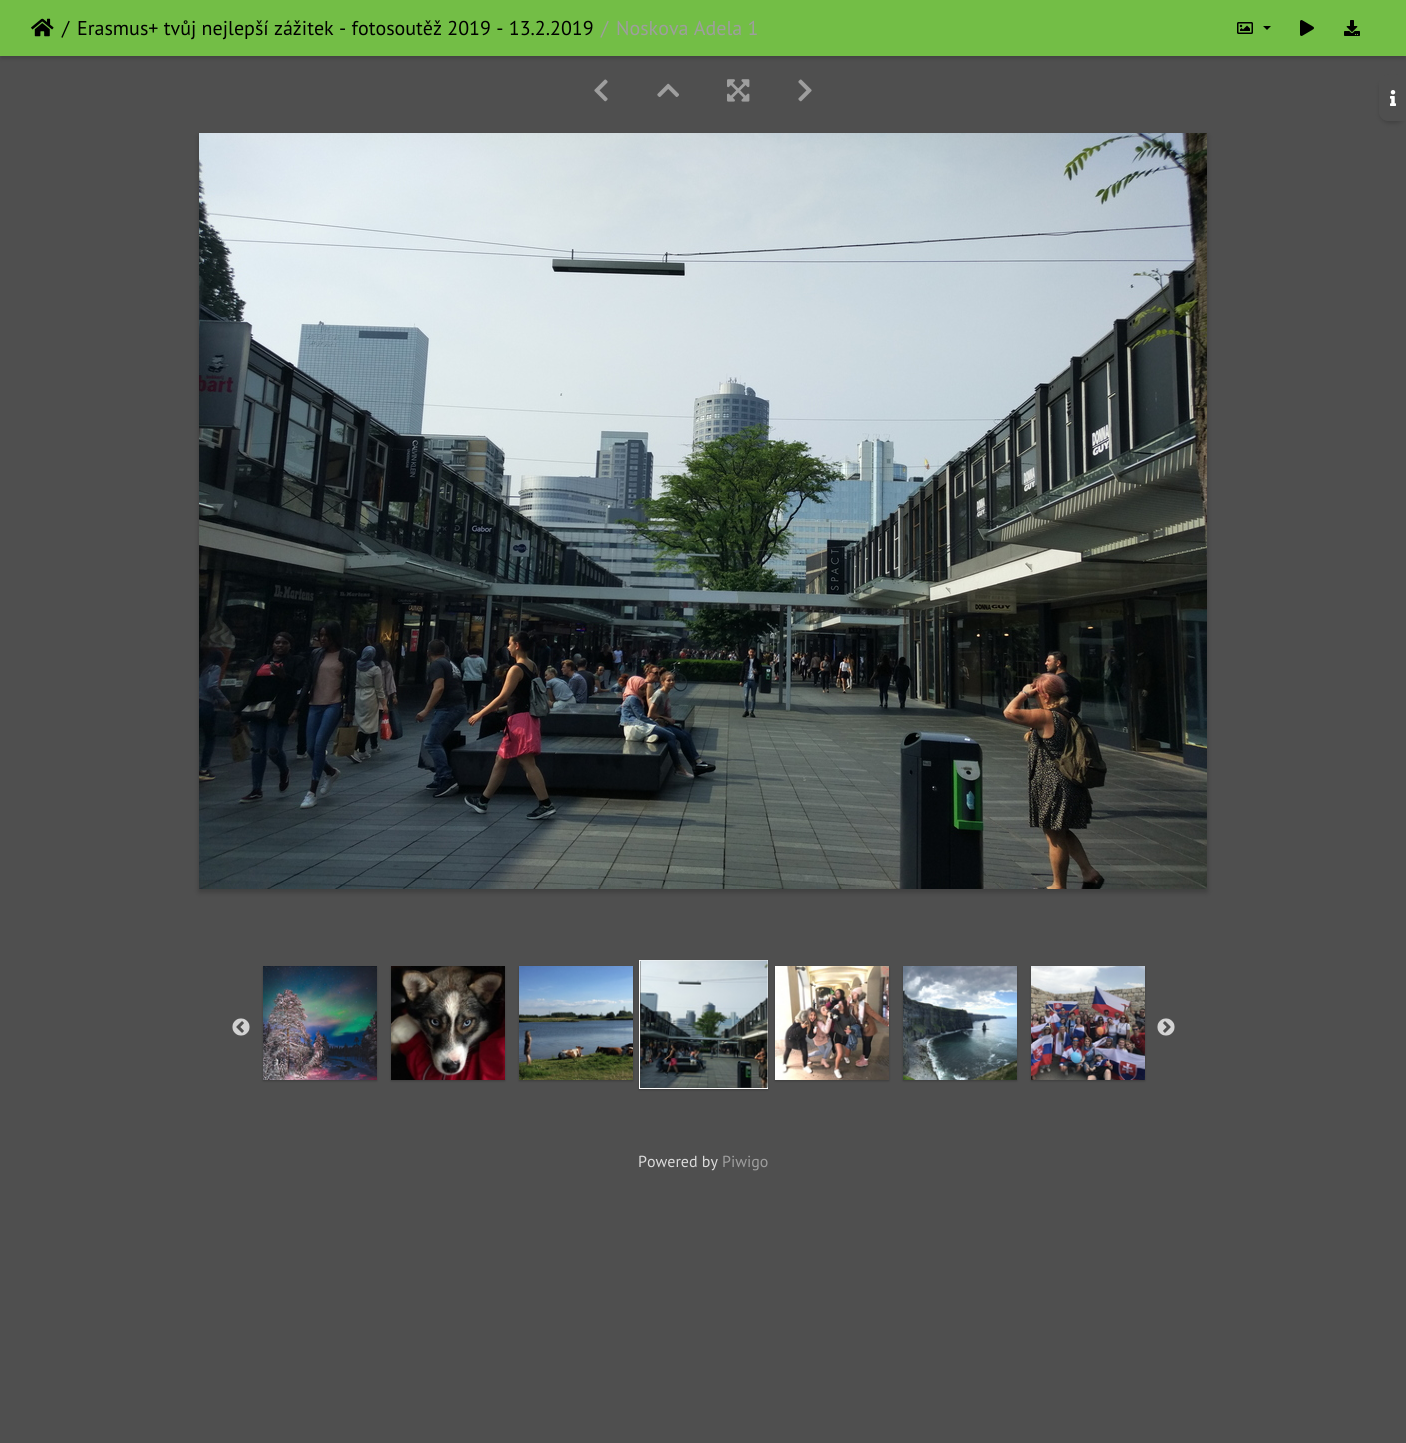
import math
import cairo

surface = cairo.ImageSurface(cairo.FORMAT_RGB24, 1406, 1443)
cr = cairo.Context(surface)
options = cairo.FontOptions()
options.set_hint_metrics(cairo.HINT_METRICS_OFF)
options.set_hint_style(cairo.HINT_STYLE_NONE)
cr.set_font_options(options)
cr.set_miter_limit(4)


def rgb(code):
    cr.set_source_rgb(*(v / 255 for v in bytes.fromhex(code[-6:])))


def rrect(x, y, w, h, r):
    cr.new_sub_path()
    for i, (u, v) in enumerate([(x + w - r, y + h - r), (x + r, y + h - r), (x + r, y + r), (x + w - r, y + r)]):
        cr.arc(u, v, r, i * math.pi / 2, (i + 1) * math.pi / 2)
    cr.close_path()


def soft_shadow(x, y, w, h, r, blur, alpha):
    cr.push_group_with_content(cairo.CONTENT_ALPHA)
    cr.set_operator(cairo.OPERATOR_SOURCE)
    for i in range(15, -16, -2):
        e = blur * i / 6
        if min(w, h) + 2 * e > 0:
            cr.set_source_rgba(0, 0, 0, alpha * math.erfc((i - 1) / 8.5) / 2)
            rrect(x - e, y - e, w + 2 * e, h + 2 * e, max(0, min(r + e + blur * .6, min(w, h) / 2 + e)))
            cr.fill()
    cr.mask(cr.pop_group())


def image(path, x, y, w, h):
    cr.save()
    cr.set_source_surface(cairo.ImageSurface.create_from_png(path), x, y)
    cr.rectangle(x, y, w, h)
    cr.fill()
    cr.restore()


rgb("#4f4f4f")
cr.paint()
rgb("#000000")
soft_shadow(1, 4, 1404, 54, 0, 2.5, 0.2)
rgb("#73be46")
cr.rectangle(0, 0, 1406, 56)
cr.fill()
image("img/1.png", 31, 18, 23, 19)
image("img/2.png", 1237, 22, 16, 12)
rgb("#000000")
cr.new_path()
cr.move_to(1263, 26)
cr.line_to(1271, 26)
cr.line_to(1267, 30)
cr.close_path()
cr.fill()
image("img/3.png", 1300, 20, 14, 16)
image("img/4.png", 1344, 20, 16, 16)
image("img/5.png", 594, 79, 14, 23)
image("img/6.png", 657, 83, 22, 14)
image("img/7.png", 727, 79, 23, 23)
image("img/8.png", 798, 79, 14, 23)
rgb("#000000")
soft_shadow(1380, 79, 25, 44, 9, 2.5, 0.2)
rgb("#4f4f4f")
cr.new_path()
cr.move_to(1389, 75)
cr.line_to(1406, 75)
cr.line_to(1406, 121)
cr.line_to(1389, 121)
cr.curve_to(1383.5, 121, 1379, 116.5, 1379, 111)
cr.line_to(1379, 85)
cr.curve_to(1379, 79.5, 1383.5, 75, 1389, 75)
cr.close_path()
cr.fill()
cr.set_fill_rule(cairo.FILL_RULE_EVEN_ODD)
cr.new_path()
cr.move_to(1389, 75)
cr.line_to(1406, 75)
cr.line_to(1406, 121)
cr.line_to(1389, 121)
cr.curve_to(1383, 121, 1379, 117, 1379, 111)
cr.line_to(1379, 85)
cr.curve_to(1379, 79, 1383, 75, 1389, 75)
cr.close_path()
cr.move_to(1389, 76)
cr.line_to(1406, 76)
cr.line_to(1406, 120)
cr.line_to(1389, 120)
cr.curve_to(1384, 120, 1380, 116, 1380, 111)
cr.line_to(1380, 85)
cr.curve_to(1380, 80, 1384, 76, 1389, 76)
cr.close_path()
cr.fill()
image("img/9.png", 1390, 90, 6, 16)
rgb("#000000")
soft_shadow(199, 136, 1008, 756, 0, 3, 0.23)
image("img/10.png", 199, 133, 1008, 756)
image("img/11.png", 232, 1018, 18, 18)
soft_shadow(263, 967, 114, 114, 0, 1, 0.24)
image("img/12.png", 263, 966, 114, 114)
soft_shadow(391, 967, 114, 114, 0, 1, 0.24)
image("img/13.png", 391, 966, 114, 114)
soft_shadow(519, 967, 114, 114, 0, 1, 0.24)
image("img/14.png", 519, 966, 114, 114)
soft_shadow(639, 961, 129, 129, 0, 1, 0.24)
cr.rectangle(639.5, 960.5, 128, 128)
rgb("#ffffff")
cr.set_line_width(1)
cr.stroke()
image("img/15.png", 640, 960, 128, 128)
rgb("#000000")
soft_shadow(775, 967, 114, 114, 0, 1, 0.24)
image("img/16.png", 775, 966, 114, 114)
soft_shadow(903, 967, 114, 114, 0, 1, 0.24)
image("img/17.png", 903, 966, 114, 114)
soft_shadow(1031, 967, 114, 114, 0, 1, 0.24)
image("img/18.png", 1031, 966, 114, 114)
image("img/19.png", 1157, 1018, 18, 18)
cr.select_font_face("PT Sans")
cr.set_font_size(20)
rgb("#000000")
cr.move_to(62, 35)
cr.show_text("/")
cr.move_to(77, 35)
cr.show_text("Erasmus+ tvůj nejlepší zážitek - fotosoutěž 2019 - 13.2.2019")
rgb("#9e9e9e")
cr.move_to(601, 35)
cr.show_text("/")
cr.move_to(616, 35)
cr.show_text("Noskova Adela 1")
cr.set_font_size(16)
rgb("#dbdbdb")
cr.move_to(638, 1167)
cr.show_text("Powered by")
rgb("#9e9e9e")
cr.move_to(722, 1167)
cr.show_text("Piwigo")
surface.write_to_png("page.png")
